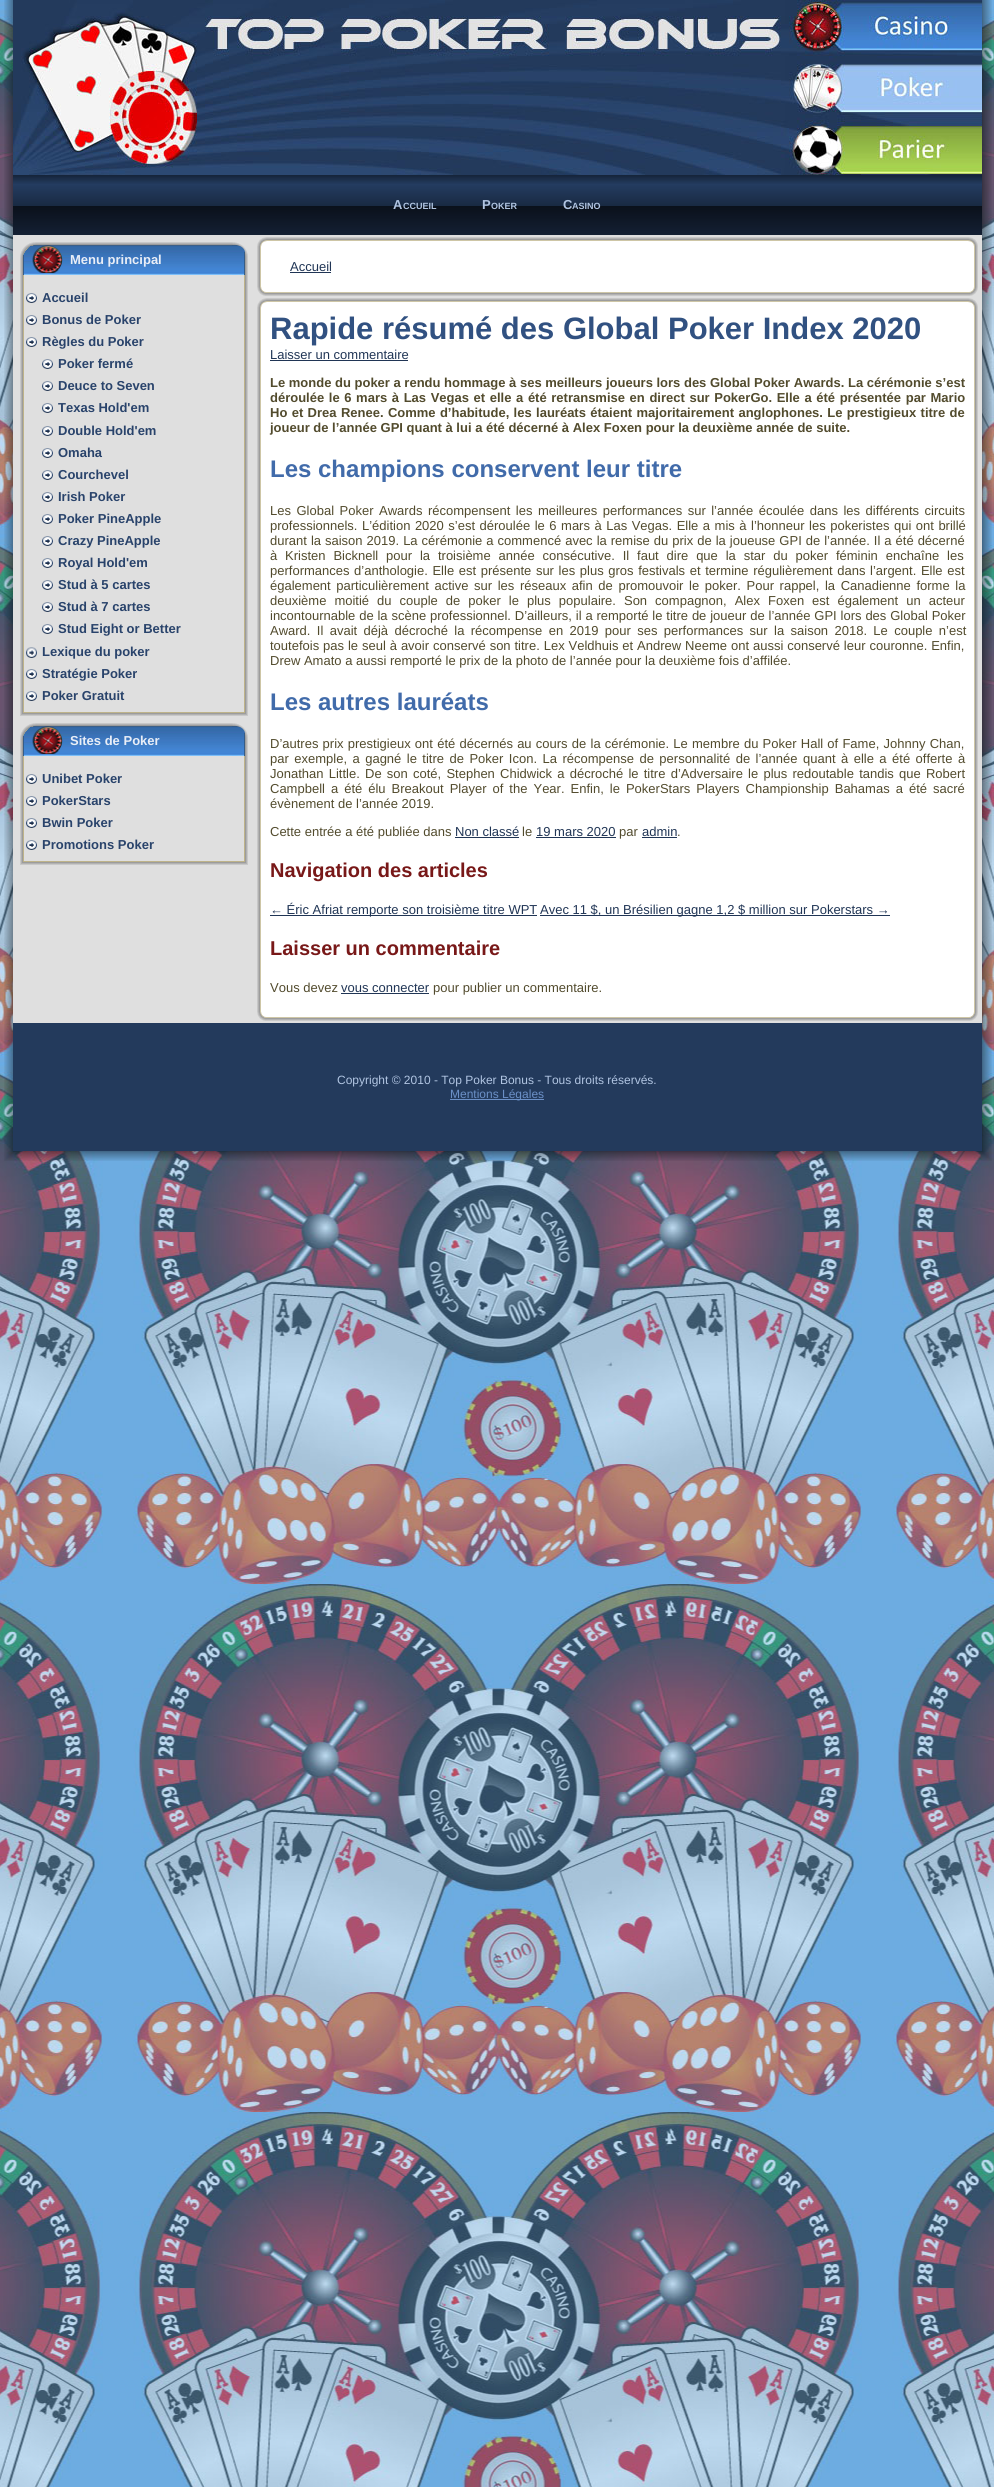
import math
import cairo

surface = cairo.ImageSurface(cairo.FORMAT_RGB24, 994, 2487)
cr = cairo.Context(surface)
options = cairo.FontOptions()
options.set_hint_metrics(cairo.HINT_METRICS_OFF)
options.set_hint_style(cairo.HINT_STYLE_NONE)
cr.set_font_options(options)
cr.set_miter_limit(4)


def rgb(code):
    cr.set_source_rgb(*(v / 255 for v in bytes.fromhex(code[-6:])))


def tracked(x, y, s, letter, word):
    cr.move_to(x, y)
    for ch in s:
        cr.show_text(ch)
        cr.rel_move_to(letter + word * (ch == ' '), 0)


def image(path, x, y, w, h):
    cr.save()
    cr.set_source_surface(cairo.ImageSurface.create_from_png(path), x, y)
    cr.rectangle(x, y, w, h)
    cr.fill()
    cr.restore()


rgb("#ffffff")
cr.paint()
image("img/1.png", 0, 0, 994, 2487)
image("img/2.png", 4, 0, 9, 31)
image("img/3.png", 982, 0, 10, 31)
image("img/4.png", 4, 31, 40, 1089)
image("img/32.png", 951, 31, 41, 1089)
image("img/5.png", 13, 0, 969, 175)
image("img/6.png", 13, 175, 969, 60)
rgb("#dfdfdf")
cr.rectangle(44, 235, 907, 788)
cr.fill()
image("img/7.png", 20, 242, 25, 25)
image("img/8.png", 45, 242, 178, 4)
image("img/9.png", 223, 242, 25, 25)
image("img/10.png", 20, 267, 4, 424)
image("img/11.png", 23, 245, 209, 30)
image("img/16.png", 244, 267, 4, 424)
image("img/12.png", 232, 245, 13, 30)
image("img/13.png", 32, 245, 31, 28)
image("img/14.png", 26, 293, 11, 10)
image("img/14.png", 26, 315, 11, 10)
image("img/14.png", 26, 337, 11, 10)
image("img/14.png", 42, 359, 11, 10)
image("img/14.png", 42, 381, 11, 10)
image("img/14.png", 42, 403, 11, 10)
image("img/14.png", 42, 426, 11, 10)
image("img/14.png", 42, 448, 11, 10)
image("img/14.png", 42, 470, 11, 10)
image("img/14.png", 42, 492, 11, 10)
image("img/14.png", 42, 514, 11, 10)
image("img/14.png", 42, 536, 11, 10)
image("img/14.png", 42, 558, 11, 10)
image("img/14.png", 42, 580, 11, 10)
image("img/14.png", 42, 602, 11, 10)
image("img/14.png", 42, 624, 11, 10)
image("img/15.png", 26, 647, 11, 11)
image("img/14.png", 26, 669, 11, 10)
image("img/17.png", 20, 691, 25, 25)
image("img/14.png", 26, 691, 11, 10)
image("img/18.png", 45, 712, 178, 4)
image("img/19.png", 223, 691, 25, 25)
image("img/7.png", 20, 723, 25, 25)
image("img/8.png", 45, 723, 178, 4)
image("img/9.png", 223, 723, 25, 25)
image("img/20.png", 20, 748, 4, 92)
image("img/11.png", 23, 726, 209, 30)
image("img/21.png", 244, 748, 4, 92)
image("img/12.png", 232, 726, 13, 30)
image("img/13.png", 32, 726, 31, 28)
image("img/14.png", 26, 774, 11, 10)
image("img/14.png", 26, 796, 11, 10)
image("img/14.png", 26, 818, 11, 10)
image("img/17.png", 20, 840, 25, 25)
image("img/14.png", 26, 840, 11, 10)
image("img/18.png", 45, 861, 178, 4)
image("img/19.png", 223, 840, 25, 25)
image("img/22.png", 257, 237, 19, 19)
image("img/23.png", 276, 237, 683, 19)
image("img/24.png", 959, 237, 19, 19)
image("img/25.png", 257, 256, 19, 21)
rgb("#ffffff")
cr.rectangle(276, 256, 683, 21)
cr.fill()
image("img/26.png", 959, 256, 19, 21)
rgb("#203555")
cr.rectangle(290, 272, 41, 1)
cr.fill()
image("img/27.png", 257, 277, 19, 19)
image("img/28.png", 276, 277, 683, 19)
image("img/29.png", 959, 277, 19, 19)
image("img/22.png", 257, 298, 19, 19)
image("img/23.png", 276, 298, 683, 19)
image("img/24.png", 959, 298, 19, 19)
image("img/30.png", 257, 317, 19, 685)
for x, y, w, h, color in [
    (276, 317, 683, 685, "#ffffff"),
    (270, 360, 138, 1, "#203555"),
    (455, 837, 64, 1, "#203555"),
    (536, 837, 80, 1, "#203555"),
    (642, 837, 35, 1, "#203555"),
    (270, 915, 267, 1, "#203555"),
    (540, 915, 350, 1, "#203555"),
    (341, 993, 88, 1, "#203555"),
]:
    rgb(color)
    cr.rectangle(x, y, w, h)
    cr.fill()
image("img/31.png", 959, 317, 19, 685)
image("img/27.png", 257, 1002, 19, 19)
image("img/28.png", 276, 1002, 683, 19)
image("img/29.png", 959, 1002, 19, 19)
image("img/33.png", 4, 1120, 40, 41)
image("img/35.png", 951, 1120, 41, 41)
rgb("#233a5c")
cr.rectangle(13, 1023, 969, 128)
cr.fill()
rgb("#6b90c7")
cr.rectangle(450, 1099, 94, 1)
cr.fill()
image("img/34.png", 44, 1151, 907, 10)
cr.select_font_face("Liberation Sans", cairo.FONT_SLANT_NORMAL, cairo.FONT_WEIGHT_BOLD)
cr.set_font_size(13)
rgb("#b1c5e2")
cr.move_to(393, 209)
cr.show_text("A")
cr.set_font_size(9)
cr.move_to(403, 209)
cr.show_text("CCUEIL")
cr.set_font_size(13)
cr.move_to(482, 209)
cr.show_text("P")
cr.set_font_size(9)
cr.move_to(491, 209)
cr.show_text("OKER")
cr.set_font_size(13)
cr.move_to(563, 209)
cr.show_text("C")
cr.set_font_size(9)
cr.move_to(572, 209)
cr.show_text("ASINO")
cr.set_font_size(13)
rgb("#e9eef7")
cr.move_to(70, 264)
cr.show_text("Menu principal")
rgb("#29436b")
for x, y, s in [
    (42, 302, "Accueil"),
    (42, 324, "Bonus de Poker"),
    (42, 346, "Règles du Poker"),
    (58, 368, "Poker fermé"),
    (58, 390, "Deuce to Seven"),
    (58, 412, "Texas Hold'em"),
    (58, 435, "Double Hold'em"),
    (58, 457, "Omaha"),
    (58, 479, "Courchevel"),
    (58, 501, "Irish Poker"),
    (58, 523, "Poker PineApple"),
    (58, 545, "Crazy PineApple"),
    (58, 567, "Royal Hold'em"),
    (58, 589, "Stud à 5 cartes"),
    (58, 611, "Stud à 7 cartes"),
    (58, 633, "Stud Eight or Better"),
    (42, 656, "Lexique du poker"),
    (42, 678, "Stratégie Poker"),
    (42, 700, "Poker Gratuit"),
]:
    cr.move_to(x, y)
    cr.show_text(s)
rgb("#e9eef7")
cr.move_to(70, 745)
cr.show_text("Sites de Poker")
rgb("#29436b")
for x, y, s in [
    (42, 783, "Unibet Poker"),
    (42, 805, "PokerStars"),
    (42, 827, "Bwin Poker"),
    (42, 849, "Promotions Poker"),
]:
    cr.move_to(x, y)
    cr.show_text(s)
cr.select_font_face("Liberation Sans")
rgb("#203555")
cr.move_to(290, 271)
cr.show_text("Accueil")
cr.select_font_face("Liberation Sans", cairo.FONT_SLANT_NORMAL, cairo.FONT_WEIGHT_BOLD)
cr.set_font_size(31)
rgb("#315181")
cr.move_to(270, 339)
cr.show_text("Rapide résumé des Global Poker Index 2020")
cr.select_font_face("Liberation Sans")
cr.set_font_size(13)
rgb("#203555")
cr.move_to(270, 359)
cr.show_text("Laisser un commentaire")
cr.select_font_face("Liberation Sans", cairo.FONT_SLANT_NORMAL, cairo.FONT_WEIGHT_BOLD)
rgb("#524b2d")
cr.move_to(270, 387)
cr.show_text("Le monde du poker a rendu hommage à ses meilleurs joueurs lors des Global Poker Awards. La cérémonie s’est")
tracked(270, 402, "déroulée le 6 mars à Las Vegas et elle a été retransmise en direct sur PokerGo. Elle a été présentée par Mario", 0, 1)
tracked(270, 417, "Ho et Drea Renee. Comme d’habitude, les lauréats étaient majoritairement anglophones. Le prestigieux titre de", 0, 0.75)
cr.move_to(270, 432)
cr.show_text("joueur de l’année GPI quant à lui a été décerné à Alex Foxen pour la deuxième année de suite.")
cr.set_font_size(24)
rgb("#416baa")
cr.move_to(270, 477)
cr.show_text("Les champions conservent leur titre")
cr.select_font_face("Liberation Sans")
cr.set_font_size(13)
rgb("#524b2d")
tracked(270, 515, "Les Global Poker Awards récompensent les meilleures performances sur l’année écoulée dans les différents circuits", 0, 1.9)
tracked(270, 530, "professionnels. L’édition 2020 s’est déroulée le 6 mars à Las Vegas. Elle a mis à l’honneur les pokeristes qui ont brillé", 0, 0.9)
tracked(270, 545, "durant la saison 2019. La cérémonie a commencé avec la remise du prix de la joueuse GPI de l’année. Il a été décerné", 0, 0.4)
tracked(270, 560, "à Kristen Bicknell pour la troisième année consécutive. Il faut dire que la star du poker féminin enchaîne les", 0, 4.25)
tracked(270, 575, "performances d’anthologie. Elle est présente sur les plus gros festivals et termine régulièrement dans l’argent. Elle est", 0, 1)
tracked(270, 590, "également particulièrement active sur les réseaux afin de promouvoir le poker. Pour rappel, la Canadienne forme la", 0, 2)
tracked(270, 605, "deuxième moitié du couple de poker le plus populaire. Son compagnon, Alex Foxen est également un acteur", 0, 4.4)
tracked(270, 620, "incontournable de la scène professionnel. D’ailleurs, il a remporté le titre de joueur de l’année GPI lors des Global Poker", 0, 0.25)
tracked(270, 635, "Award. Il avait déjà décroché la récompense en 2019 pour ses performances sur la saison 2018. Le couple n’est", 0, 2.75)
tracked(270, 650, "toutefois pas le seul à avoir conservé son titre. Lex Veldhuis et Andrew Neeme ont aussi conservé leur couronne. Enfin,", 0, 0.3)
cr.move_to(270, 665)
cr.show_text("Drew Amato a aussi remporté le prix de la photo de l’année pour la deuxième fois d’affilée.")
cr.select_font_face("Liberation Sans", cairo.FONT_SLANT_NORMAL, cairo.FONT_WEIGHT_BOLD)
cr.set_font_size(24)
rgb("#416baa")
cr.move_to(270, 710)
cr.show_text("Les autres lauréats")
cr.select_font_face("Liberation Sans")
cr.set_font_size(13)
rgb("#524b2d")
tracked(270, 748, "D’autres prix prestigieux ont été décernés au cours de la cérémonie. Le membre du Poker Hall of Fame, Johnny Chan,", 0, 0.6)
tracked(270, 763, "par exemple, a gagné le titre de Poker Icon. La récompense de personnalité de l’année quant à elle a été offerte à", 0, 1.85)
tracked(270, 778, "Jonathan Little. De son coté, Stephen Chidwick a décroché le titre d’Adversaire le plus redoutable tandis que Robert", 0, 1.6)
tracked(270, 793, "Campbell a été élu Breakout Player of the Year. Enfin, le PokerStars Players Championship Bahamas a été sacré", 0, 2.4)
cr.move_to(270, 808)
cr.show_text("évènement de l’année 2019.")
cr.move_to(270, 836)
cr.show_text("Cette entrée a été publiée dans")
rgb("#203555")
cr.move_to(455, 836)
cr.show_text("Non classé")
rgb("#524b2d")
cr.move_to(522, 836)
cr.show_text("le")
rgb("#203555")
cr.move_to(536, 836)
cr.show_text("19 mars 2020")
rgb("#524b2d")
cr.move_to(619, 836)
cr.show_text("par")
rgb("#203555")
cr.move_to(642, 836)
cr.show_text("admin")
rgb("#524b2d")
cr.move_to(677, 836)
cr.show_text(".")
cr.select_font_face("Liberation Sans", cairo.FONT_SLANT_NORMAL, cairo.FONT_WEIGHT_BOLD)
cr.set_font_size(20)
rgb("#781818")
cr.move_to(270, 877)
cr.show_text("Navigation des articles")
cr.select_font_face("Liberation Sans")
cr.set_font_size(13)
rgb("#203555")
cr.move_to(270, 914)
cr.show_text("← Éric Afriat remporte son troisième titre WPT")
cr.move_to(540, 914)
cr.show_text("Avec 11 $, un Brésilien gagne 1,2 $ million sur Pokerstars →")
cr.select_font_face("Liberation Sans", cairo.FONT_SLANT_NORMAL, cairo.FONT_WEIGHT_BOLD)
cr.set_font_size(20)
rgb("#781818")
cr.move_to(270, 955)
cr.show_text("Laisser un commentaire")
cr.select_font_face("Liberation Sans")
cr.set_font_size(13)
rgb("#524b2d")
cr.move_to(270, 992)
cr.show_text("Vous devez")
rgb("#203555")
cr.move_to(341, 992)
cr.show_text("vous connecter")
rgb("#524b2d")
cr.move_to(433, 992)
cr.show_text("pour publier un commentaire.")
cr.set_font_size(12)
rgb("#b1c5e2")
cr.move_to(337, 1084)
cr.show_text("Copyright © 2010 - Top Poker Bonus - Tous droits réservés.")
rgb("#6b90c7")
cr.move_to(450, 1098)
cr.show_text("Mentions Légales")
surface.write_to_png("page.png")
